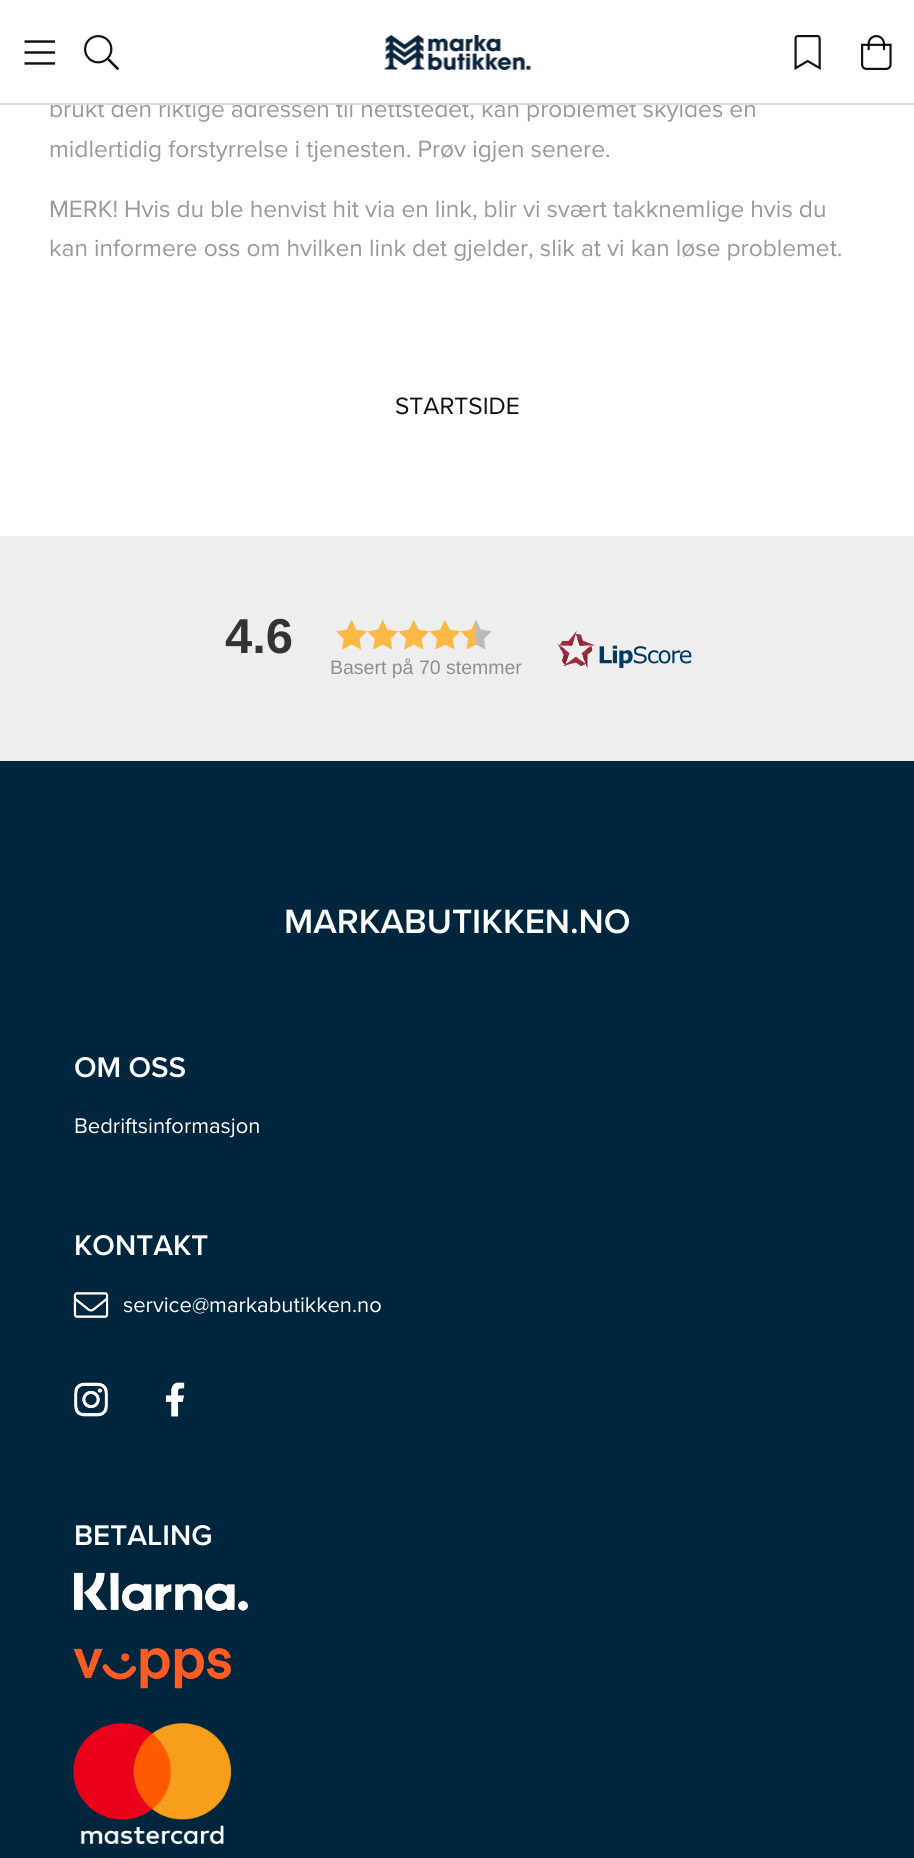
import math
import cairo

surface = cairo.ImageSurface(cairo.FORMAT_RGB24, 914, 1858)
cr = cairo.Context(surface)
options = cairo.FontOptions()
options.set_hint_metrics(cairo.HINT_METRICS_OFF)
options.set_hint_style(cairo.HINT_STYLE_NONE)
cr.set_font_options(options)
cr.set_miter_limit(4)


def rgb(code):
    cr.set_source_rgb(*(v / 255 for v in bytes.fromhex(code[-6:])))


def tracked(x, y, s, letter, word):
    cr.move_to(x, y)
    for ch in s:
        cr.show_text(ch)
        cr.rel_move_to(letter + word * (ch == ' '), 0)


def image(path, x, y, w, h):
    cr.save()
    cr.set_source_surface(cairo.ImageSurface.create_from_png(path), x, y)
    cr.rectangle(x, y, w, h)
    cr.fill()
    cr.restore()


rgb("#ffffff")
cr.paint()
image("img/1.png", 24, 40, 32, 25)
image("img/2.png", 84, 35, 35, 35)
image("img/3.png", 384, 35, 147, 35)
image("img/4.png", 794, 35, 27, 35)
image("img/5.png", 861, 35, 31, 35)
rgb("#eeeeee")
cr.rectangle(0, 536, 914, 225)
cr.fill()
image("img/6.png", 336, 620, 356, 48)
rgb("#00263e")
cr.rectangle(0, 761, 914, 1097)
cr.fill()
image("img/7.png", 73, 1292, 36, 26)
image("img/8.png", 74, 1382, 34, 35)
image("img/9.png", 165, 1382, 20, 35)
image("img/10.png", 74, 1572, 174, 39)
image("img/11.png", 73, 1648, 158, 41)
image("img/12.png", 73, 1723, 158, 121)
cr.select_font_face("Proxima Nova")
cr.set_font_size(24.5)
rgb("#999999")
tracked(49, 117, "brukt den riktige adressen til nettstedet, kan problemet skyldes en", 0, -0.25)
rgb("#dddddd")
cr.rectangle(0, 103, 914, 2)
cr.fill()
rgb("#ffffff")
cr.rectangle(50, 100, 647, 3)
cr.fill()
rgb("#999999")
for x, y, s in [
    (49, 157, "midlertidig forstyrrelse i tjenesten. Prøv igjen senere."),
    (49, 217, "MERK! Hvis du ble henvist hit via en link, blir vi svært takknemlige hvis du"),
    (49, 256, "kan informere oss om hvilken link det gjelder, slik at vi kan løse problemet."),
]:
    tracked(x, y, s, 0, -0.25)
rgb("#111111")
cr.move_to(395, 414)
cr.show_text("STARTSIDE")
cr.select_font_face("Liberation Sans", cairo.FONT_SLANT_NORMAL, cairo.FONT_WEIGHT_BOLD)
cr.set_font_size(49)
rgb("#333333")
cr.move_to(225, 653)
cr.show_text("4.6")
cr.select_font_face("Liberation Sans")
cr.set_font_size(19.5)
rgb("#8c8f93")
cr.move_to(330, 674)
cr.show_text("Basert på 70 stemmer")
cr.select_font_face("Proxima Nova SemiBold")
cr.set_font_size(35)
rgb("#ffffff")
cr.move_to(284, 933)
cr.show_text("MARKABUTIKKEN.NO")
cr.set_font_size(29.5)
tracked(74, 1077, "OM OSS", 0, -0.25)
cr.select_font_face("Proxima Nova")
cr.set_font_size(22)
cr.move_to(74, 1133)
cr.show_text("Bedriftsinformasjon")
cr.select_font_face("Proxima Nova SemiBold")
cr.set_font_size(29.5)
cr.move_to(74, 1255)
cr.show_text("KONTAKT")
cr.select_font_face("Proxima Nova")
cr.set_font_size(22)
cr.move_to(123, 1312)
cr.show_text("service@markabutikken.no")
cr.select_font_face("Proxima Nova SemiBold")
cr.set_font_size(29.5)
cr.move_to(74, 1545)
cr.show_text("BETALING")
surface.write_to_png("page.png")
